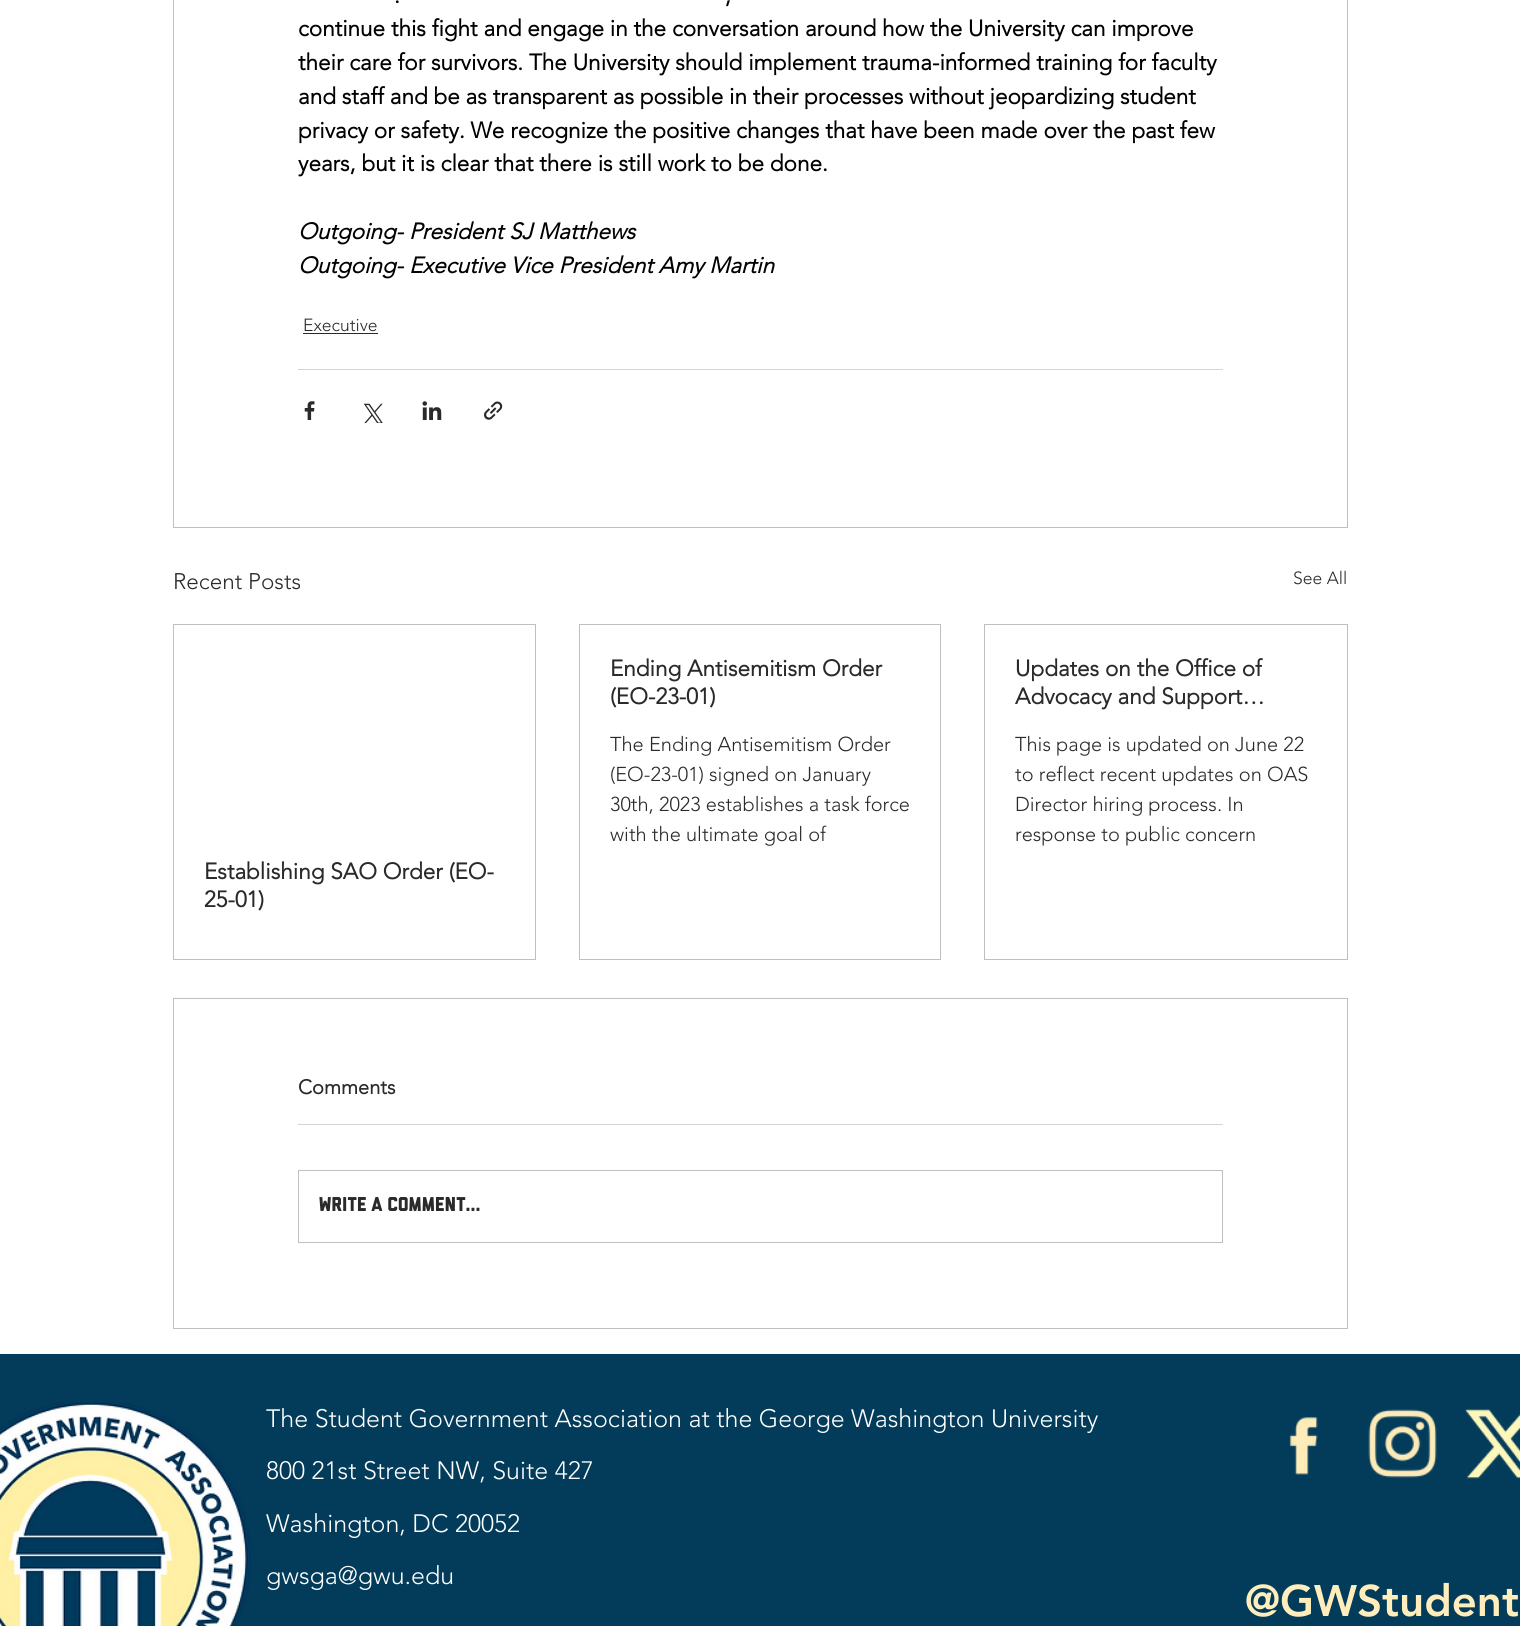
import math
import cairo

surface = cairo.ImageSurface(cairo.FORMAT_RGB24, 1520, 1626)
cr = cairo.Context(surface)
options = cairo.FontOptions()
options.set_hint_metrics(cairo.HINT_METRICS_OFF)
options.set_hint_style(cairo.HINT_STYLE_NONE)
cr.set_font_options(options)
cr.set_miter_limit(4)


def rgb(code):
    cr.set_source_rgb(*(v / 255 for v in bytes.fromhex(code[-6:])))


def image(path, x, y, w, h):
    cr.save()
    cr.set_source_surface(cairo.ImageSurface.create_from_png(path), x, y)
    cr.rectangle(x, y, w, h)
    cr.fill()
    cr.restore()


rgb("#ffffff")
cr.paint()
cr.rectangle(173.5, -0.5, 1174, 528)
rgb("#bfbfbf")
cr.set_line_width(1)
cr.stroke()
rgb("#2a2a2a")
cr.rectangle(303, 333, 75, 1)
cr.fill()
rgb("#d4d4d4")
cr.rectangle(298, 369, 925, 1)
cr.fill()
image("img/1.png", 304, 401, 11, 19)
image("img/2.png", 363, 403, 20, 20)
image("img/3.png", 422, 401, 20, 19)
image("img/4.png", 484, 401, 19, 19)
cr.rectangle(579.5, 624.5, 361, 335)
rgb("#bfbfbf")
cr.stroke()
cr.rectangle(984.5, 624.5, 363, 335)
cr.stroke()
cr.rectangle(173.5, 624.5, 362, 335)
cr.stroke()
cr.rectangle(173.5, 998.5, 1174, 330)
cr.stroke()
rgb("#d4d4d4")
cr.rectangle(298, 1124, 925, 1)
cr.fill()
cr.rectangle(298.5, 1170.5, 924, 72)
rgb("#bfbfbf")
cr.stroke()
rgb("#033c5a")
cr.rectangle(0, 1354, 1520, 272)
cr.fill()
image("img/5.png", 0, 1402, 251, 224)
image("img/6.png", 1289, 1417, 29, 58)
image("img/7.png", 1368, 1409, 69, 69)
image("img/8.png", 1465, 1409, 55, 70)
cr.select_font_face("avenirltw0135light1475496", cairo.FONT_SLANT_NORMAL, cairo.FONT_WEIGHT_BOLD)
cr.set_font_size(22.5)
rgb("#000000")
for x, y, s in [
    (394, 3, "."),
    (725, 3, ","),
    (298, 36, "continue this fight and engage in the conversation around how the University can improve"),
    (298, 70, "their care for survivors. The University should implement trauma-informed training for faculty"),
    (298, 104, "and staff and be as transparent as possible in their processes without jeopardizing student"),
    (298, 138, "privacy or safety. We recognize the positive changes that have been made over the past few"),
    (298, 171, "years, but it is clear that there is still work to be done."),
]:
    cr.move_to(x, y)
    cr.show_text(s)
cr.select_font_face("avenirltw0135light1475496", cairo.FONT_SLANT_ITALIC, cairo.FONT_WEIGHT_BOLD)
cr.move_to(298, 239)
cr.show_text("Outgoing- President SJ Matthews")
cr.move_to(298, 273)
cr.show_text("Outgoing- Executive Vice President Amy Martin")
cr.select_font_face("avenirltw0135light1475496 Light")
cr.set_font_size(17.5)
rgb("#2a2a2a")
cr.move_to(303, 331)
cr.show_text("Executive")
cr.set_font_size(22.5)
cr.move_to(173, 589)
cr.show_text("Recent Posts")
cr.set_font_size(17.5)
cr.move_to(1293, 584)
cr.show_text("See All")
cr.select_font_face("avenirltw0135light1475496", cairo.FONT_SLANT_NORMAL, cairo.FONT_WEIGHT_BOLD)
cr.set_font_size(22.5)
cr.move_to(610, 676)
cr.show_text("Ending Antisemitism Order")
cr.move_to(610, 704)
cr.show_text("(EO-23-01)")
cr.select_font_face("avenirltw0135light1475496 Light")
cr.set_font_size(20)
for x, y, s in [
    (610, 751, "The Ending Antisemitism Order"),
    (610, 781, "(EO-23-01) signed on January"),
    (610, 811, "30th, 2023 establishes a task force"),
    (610, 841, "with the ultimate goal of"),
]:
    cr.move_to(x, y)
    cr.show_text(s)
cr.select_font_face("avenirltw0135light1475496", cairo.FONT_SLANT_NORMAL, cairo.FONT_WEIGHT_BOLD)
cr.set_font_size(22.5)
cr.move_to(1015, 676)
cr.show_text("Updates on the Office of")
cr.move_to(1015, 704)
cr.show_text("Advocacy and Support…")
cr.select_font_face("avenirltw0135light1475496 Light")
cr.set_font_size(20)
for x, y, s in [
    (1015, 751, "This page is updated on June 22"),
    (1015, 781, "to reflect recent updates on OAS"),
    (1015, 811, "Director hiring process. In"),
    (1015, 841, "response to public concern"),
]:
    cr.move_to(x, y)
    cr.show_text(s)
cr.select_font_face("avenirltw0135light1475496", cairo.FONT_SLANT_NORMAL, cairo.FONT_WEIGHT_BOLD)
cr.set_font_size(22.5)
cr.move_to(204, 879)
cr.show_text("Establishing SAO Order (EO-")
cr.move_to(204, 907)
cr.show_text("25-01)")
cr.set_font_size(20)
cr.move_to(298, 1094)
cr.show_text("Comments")
cr.select_font_face("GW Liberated")
cr.move_to(319, 1211)
cr.show_text("Write a comment...")
cr.select_font_face("avenirltw0135light1475496 Light")
cr.set_font_size(25)
rgb("#ffffff")
for x, y, s in [
    (266, 1427, "The Student Government Association at the George Washington University"),
    (266, 1479, "800 21st Street NW, Suite 427"),
    (266, 1532, "Washington, DC 20052"),
    (266, 1584, "gwsga@gwu.edu"),
]:
    cr.move_to(x, y)
    cr.show_text(s)
cr.select_font_face("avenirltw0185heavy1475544 Black")
cr.set_font_size(43.75)
rgb("#ffeebb")
cr.move_to(1245, 1616)
cr.show_text("@GWStudent")
surface.write_to_png("page.png")
